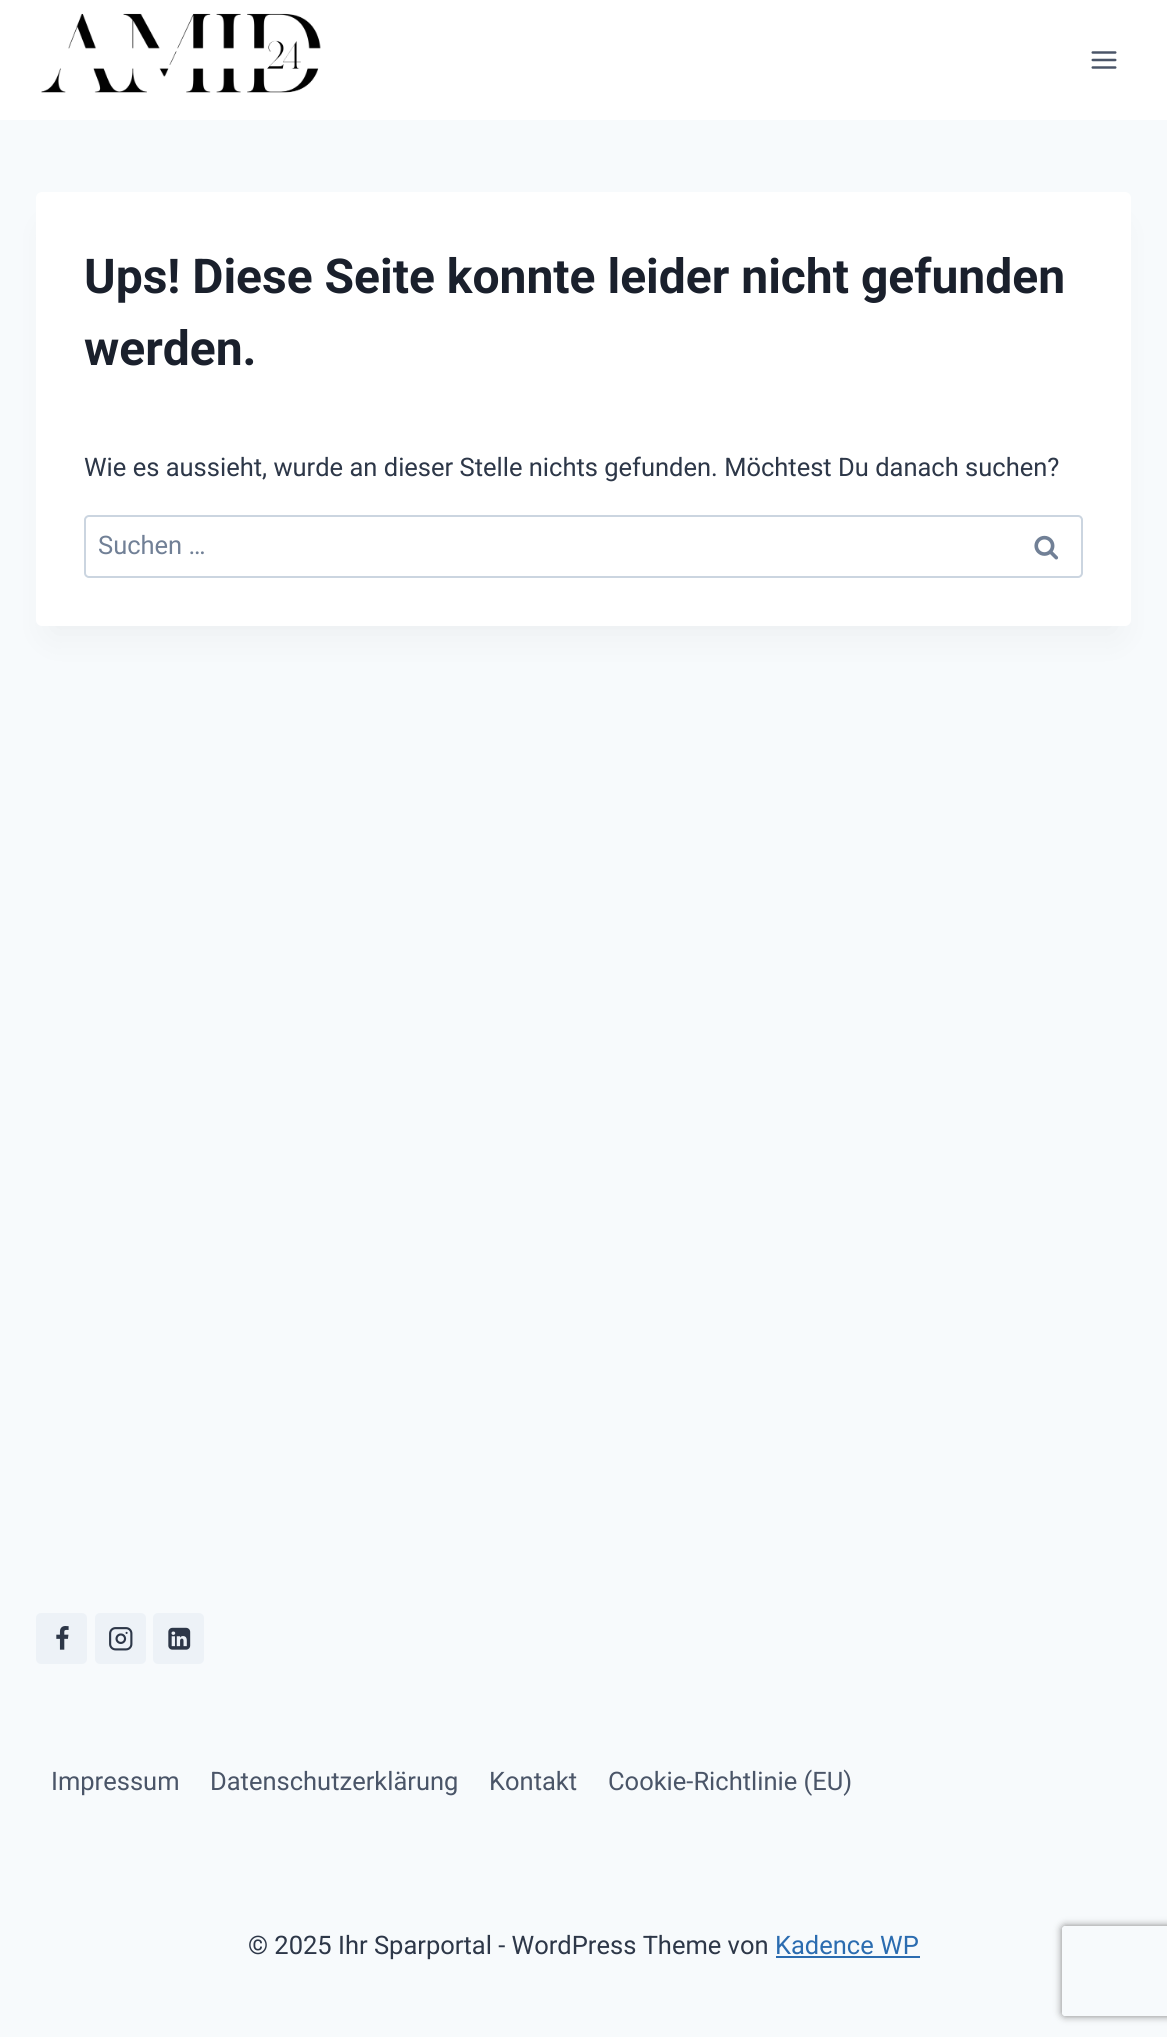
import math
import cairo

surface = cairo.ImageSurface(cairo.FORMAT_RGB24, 1167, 2037)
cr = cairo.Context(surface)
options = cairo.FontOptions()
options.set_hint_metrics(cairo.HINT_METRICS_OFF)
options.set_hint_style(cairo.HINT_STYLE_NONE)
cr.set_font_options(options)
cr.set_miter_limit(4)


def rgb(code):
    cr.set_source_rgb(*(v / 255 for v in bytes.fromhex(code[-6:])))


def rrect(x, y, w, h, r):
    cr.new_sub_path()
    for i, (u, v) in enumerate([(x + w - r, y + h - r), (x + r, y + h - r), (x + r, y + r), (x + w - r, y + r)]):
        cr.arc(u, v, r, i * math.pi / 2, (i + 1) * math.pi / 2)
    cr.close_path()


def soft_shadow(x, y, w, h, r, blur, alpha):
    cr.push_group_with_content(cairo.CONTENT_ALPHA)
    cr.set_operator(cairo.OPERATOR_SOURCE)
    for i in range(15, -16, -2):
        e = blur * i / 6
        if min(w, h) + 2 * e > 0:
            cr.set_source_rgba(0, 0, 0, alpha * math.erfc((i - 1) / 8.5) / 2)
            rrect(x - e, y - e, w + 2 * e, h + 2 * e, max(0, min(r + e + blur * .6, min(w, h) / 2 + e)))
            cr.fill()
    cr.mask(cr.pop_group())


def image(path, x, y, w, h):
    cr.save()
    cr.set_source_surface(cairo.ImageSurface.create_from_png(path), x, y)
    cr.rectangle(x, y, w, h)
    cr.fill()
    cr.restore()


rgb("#f7fafc")
cr.paint()
rgb("#ffffff")
cr.rectangle(0, 0, 1167, 120)
cr.fill()
image("img/1.png", 41, 13, 280, 80)
image("img/2.png", 1091, 51, 26, 18)
rgb("#000000")
soft_shadow(51, 230, 1065, 403, 0, 19, 0.05)
rgb("#ffffff")
rrect(36, 192, 1095, 434, 6)
cr.fill()
rrect(85, 516, 997, 61, 4)
rgb("#cbd5e0")
cr.stroke()
image("img/3.png", 1034, 535, 25, 25)
rgb("#edf2f7")
rrect(36, 1613, 51, 51, 5)
cr.fill()
image("img/4.png", 56, 1626, 13, 24)
rrect(95, 1613, 51, 51, 5)
cr.fill()
image("img/5.png", 109, 1627, 24, 24)
rrect(153, 1613, 51, 51, 5)
cr.fill()
image("img/6.png", 168, 1627, 23, 23)
rgb("#2b6cb0")
cr.rectangle(776, 1956, 144, 2)
cr.fill()
cr.save()
cr.set_fill_rule(cairo.FILL_RULE_EVEN_ODD)
cr.new_path()
cr.move_to(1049, 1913)
cr.line_to(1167, 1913)
cr.line_to(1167, 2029)
cr.line_to(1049, 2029)
cr.close_path()
cr.move_to(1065, 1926)
cr.line_to(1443, 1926)
cr.curve_to(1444.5, 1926, 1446, 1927.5, 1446, 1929)
cr.line_to(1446, 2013)
cr.curve_to(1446, 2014.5, 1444.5, 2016, 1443, 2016)
cr.line_to(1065, 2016)
cr.curve_to(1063.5, 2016, 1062, 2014.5, 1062, 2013)
cr.line_to(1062, 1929)
cr.curve_to(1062, 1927.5, 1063.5, 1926, 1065, 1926)
cr.close_path()
cr.clip()
rgb("#808080")
soft_shadow(1062, 1926, 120, 90, 3, 4, 1)
cr.restore()
cr.select_font_face("Roboto", cairo.FONT_SLANT_NORMAL, cairo.FONT_WEIGHT_BOLD)
cr.set_font_size(48)
rgb("#1a202c")
cr.move_to(84, 293)
cr.show_text("Ups! Diese Seite konnte leider nicht gefunden")
cr.move_to(84, 365)
cr.show_text("werden.")
cr.select_font_face("Roboto")
cr.set_font_size(25.5)
rgb("#2d3748")
cr.move_to(84, 476)
cr.show_text("Wie es aussieht, wurde an dieser Stelle nichts gefunden. Möchtest Du danach suchen?")
rgb("#718096")
cr.move_to(98, 554)
cr.show_text("Suchen …")
rgb("#4a5568")
for x, y, s in [
    (51, 1790, "Impressum"),
    (210, 1790, "Datenschutzerklärung"),
    (489, 1790, "Kontakt"),
    (608, 1790, "Cookie-Richtlinie (EU)"),
]:
    cr.move_to(x, y)
    cr.show_text(s)
rgb("#2d3748")
cr.move_to(248, 1954)
cr.show_text("© 2025 Ihr Sparportal - WordPress Theme von")
rgb("#2b6cb0")
cr.move_to(775, 1954)
cr.show_text("Kadence WP")
surface.write_to_png("page.png")
